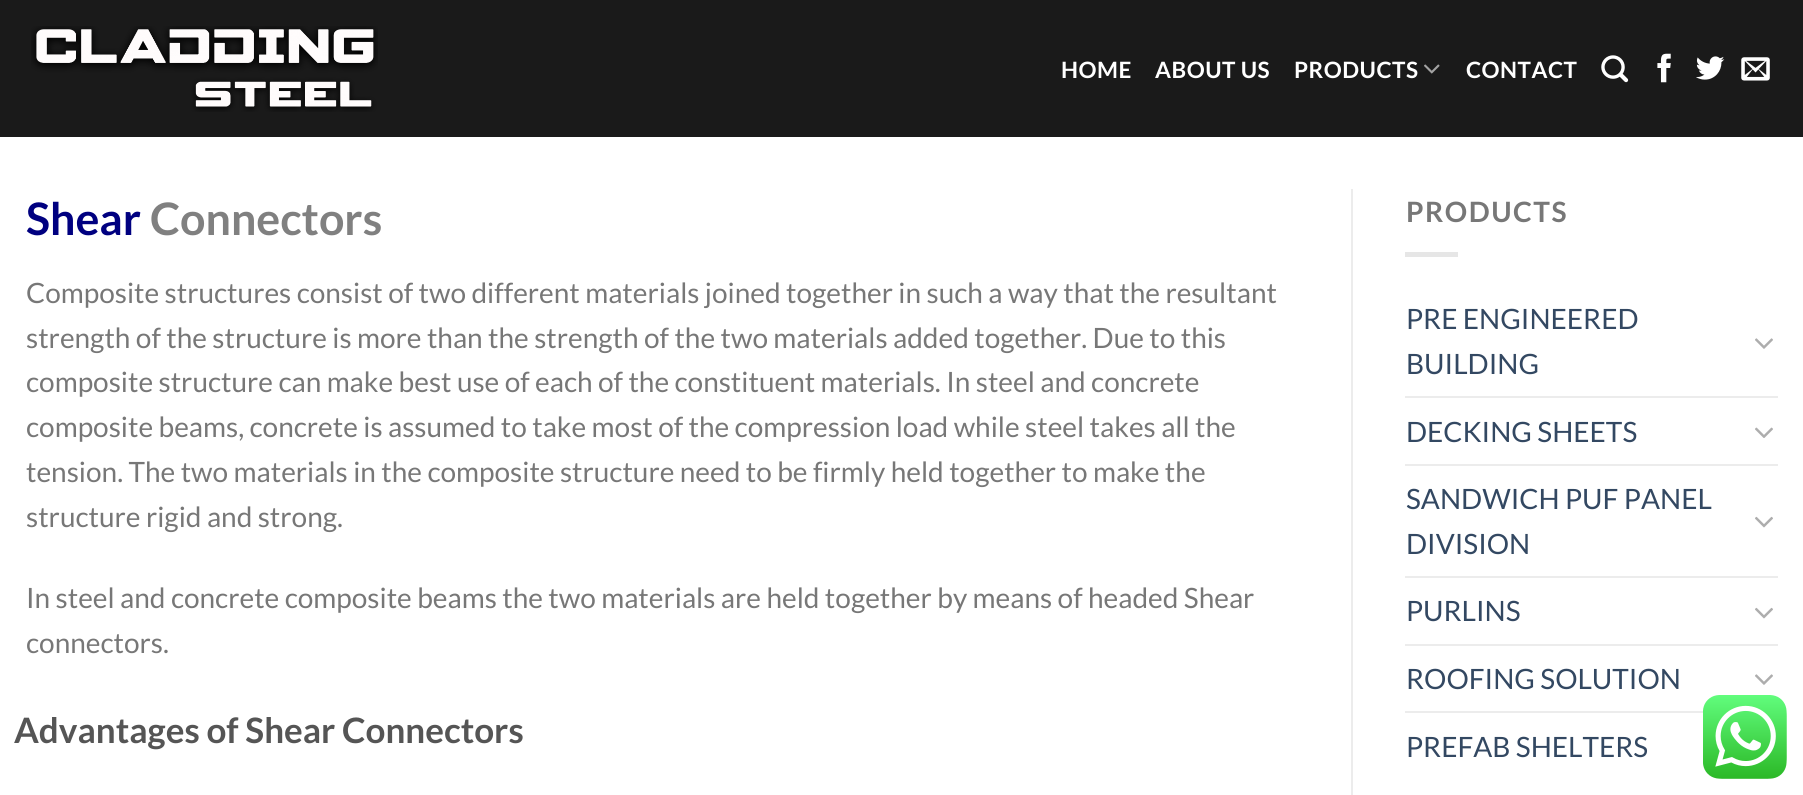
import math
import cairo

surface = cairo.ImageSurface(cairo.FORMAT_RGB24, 1803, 795)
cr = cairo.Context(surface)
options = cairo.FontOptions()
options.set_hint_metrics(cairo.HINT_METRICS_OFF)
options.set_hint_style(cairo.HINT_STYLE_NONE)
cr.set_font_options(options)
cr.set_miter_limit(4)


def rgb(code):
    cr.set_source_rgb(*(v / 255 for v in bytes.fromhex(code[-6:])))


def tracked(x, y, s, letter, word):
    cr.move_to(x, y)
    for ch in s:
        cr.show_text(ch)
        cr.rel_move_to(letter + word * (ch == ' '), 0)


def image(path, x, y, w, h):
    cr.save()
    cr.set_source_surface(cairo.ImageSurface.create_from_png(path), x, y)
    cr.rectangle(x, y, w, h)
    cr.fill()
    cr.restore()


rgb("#ffffff")
cr.paint()
rgb("#1a1a1a")
cr.rectangle(0, 0, 1803, 137)
cr.fill()
image("img/1.png", 31, 26, 347, 86)
image("img/2.png", 1424, 64, 16, 10)
image("img/3.png", 1601, 55, 28, 28)
image("img/4.png", 1657, 53, 14, 30)
image("img/5.png", 1696, 56, 29, 24)
image("img/6.png", 1741, 57, 29, 24)
rgb("#ececec")
cr.rectangle(1351, 189, 2, 606)
cr.fill()
rgb("#e6e6e6")
cr.rectangle(1405, 252, 53, 5)
cr.fill()
image("img/7.png", 1755, 338, 18, 11)
rgb("#ececec")
cr.rectangle(1405, 396, 373, 2)
cr.fill()
image("img/8.png", 1755, 427, 18, 11)
cr.rectangle(1405, 464, 373, 2)
cr.fill()
image("img/9.png", 1755, 516, 18, 12)
cr.rectangle(1405, 576, 373, 2)
cr.fill()
image("img/9.png", 1755, 607, 18, 12)
cr.rectangle(1405, 644, 373, 2)
cr.fill()
image("img/7.png", 1755, 674, 18, 11)
cr.rectangle(1405, 711, 298, 2)
cr.fill()
image("img/10.png", 1703, 695, 84, 84)
cr.select_font_face("Lato", cairo.FONT_SLANT_NORMAL, cairo.FONT_WEIGHT_BOLD)
cr.set_font_size(22.5)
rgb("#ffffff")
for x, y, s in [
    (1061, 78, "HOME"),
    (1155, 78, "ABOUT US"),
    (1294, 78, "PRODUCTS"),
    (1466, 78, "CONTACT"),
]:
    tracked(x, y, s, 0.5, 0)
cr.set_font_size(44.75)
rgb("#000080")
cr.move_to(26, 235)
cr.show_text("Shear")
rgb("#808080")
cr.move_to(150, 235)
cr.show_text("Connectors")
cr.select_font_face("Lato")
cr.set_font_size(28)
rgb("#777777")
for x, y, s in [
    (26, 303, "Composite structures consist of two different materials joined together in such a way that the resultant"),
    (26, 348, "strength of the structure is more than the strength of the two materials added together. Due to this"),
    (26, 392, "composite structure can make best use of each of the constituent materials. In steel and concrete"),
    (26, 437, "composite beams, concrete is assumed to take most of the compression load while steel takes all the"),
    (26, 482, "tension. The two materials in the composite structure need to be firmly held together to make the"),
    (26, 527, "structure rigid and strong."),
    (26, 608, "In steel and concrete composite beams the two materials are held together by means of headed Shear"),
    (26, 653, "connectors."),
]:
    cr.move_to(x, y)
    cr.show_text(s)
cr.select_font_face("Lato", cairo.FONT_SLANT_NORMAL, cairo.FONT_WEIGHT_BOLD)
cr.set_font_size(35)
rgb("#555555")
cr.move_to(14, 743)
cr.show_text("Advantages of Shear Connectors")
cr.set_font_size(28)
rgb("#777777")
tracked(1406, 222, "PRODUCTS", 1.5, 0)
cr.select_font_face("Lato")
rgb("#334862")
for x, y, s in [
    (1406, 329, "PRE ENGINEERED"),
    (1406, 374, "BUILDING"),
    (1406, 442, "DECKING SHEETS"),
    (1406, 509, "SANDWICH PUF PANEL"),
    (1406, 554, "DIVISION"),
    (1406, 621, "PURLINS"),
    (1406, 689, "ROOFING SOLUTION"),
    (1406, 757, "PREFAB SHELTERS"),
]:
    cr.move_to(x, y)
    cr.show_text(s)
surface.write_to_png("page.png")
